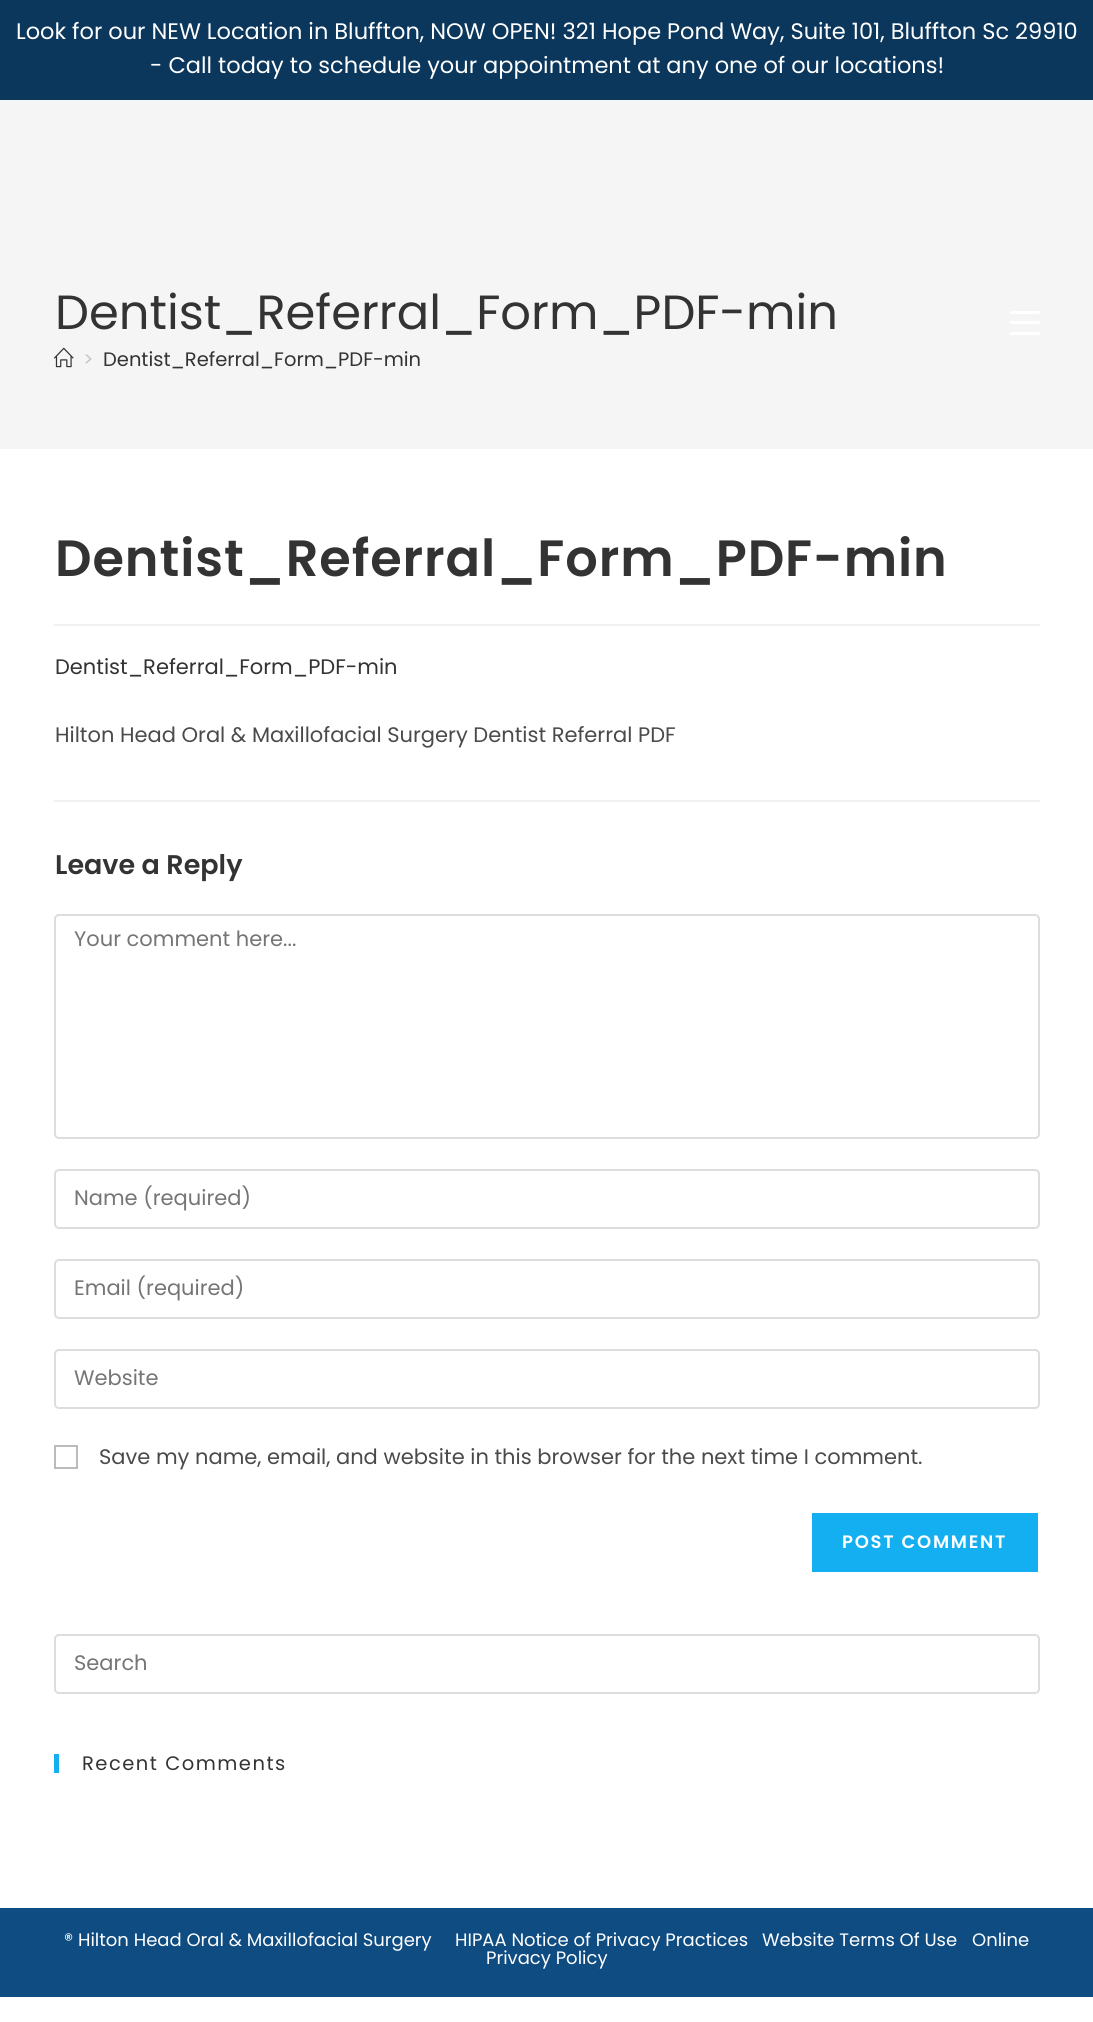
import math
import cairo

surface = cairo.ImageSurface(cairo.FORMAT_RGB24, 1093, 2022)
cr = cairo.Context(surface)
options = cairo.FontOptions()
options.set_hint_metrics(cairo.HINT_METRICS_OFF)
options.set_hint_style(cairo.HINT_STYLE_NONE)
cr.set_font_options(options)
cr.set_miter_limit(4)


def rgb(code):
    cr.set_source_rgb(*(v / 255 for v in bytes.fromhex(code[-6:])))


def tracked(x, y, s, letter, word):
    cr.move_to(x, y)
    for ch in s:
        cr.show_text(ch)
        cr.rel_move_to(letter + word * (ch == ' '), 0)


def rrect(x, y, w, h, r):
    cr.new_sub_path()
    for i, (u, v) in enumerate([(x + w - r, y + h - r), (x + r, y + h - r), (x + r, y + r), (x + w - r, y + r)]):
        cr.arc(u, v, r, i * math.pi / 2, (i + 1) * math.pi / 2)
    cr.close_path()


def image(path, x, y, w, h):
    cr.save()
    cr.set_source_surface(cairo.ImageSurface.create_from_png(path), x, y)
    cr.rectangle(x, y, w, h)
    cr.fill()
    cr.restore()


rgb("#ffffff")
cr.paint()
rgb("#0b375d")
cr.rectangle(0, 0, 1093, 100)
cr.fill()
rgb("#f5f5f5")
cr.rectangle(0, 100, 1093, 349)
cr.fill()
image("img/1.png", 54, 347, 20, 21)
rgb("#f1f1f1")
cr.rectangle(54, 624, 986, 2)
cr.fill()
cr.rectangle(54, 800, 986, 2)
cr.fill()
rrect(55, 915, 984, 223, 4)
rgb("#dddddd")
cr.stroke()
rrect(55, 1170, 984, 58, 4)
cr.stroke()
rrect(55, 1260, 984, 58, 4)
cr.stroke()
rrect(55, 1350, 984, 58, 4)
cr.stroke()
cr.rectangle(55, 1446, 22, 22)
rgb("#bbbbbb")
cr.stroke()
rgb("#13aff0")
cr.rectangle(812, 1513, 226, 59)
cr.fill()
rrect(55, 1635, 984, 58, 4)
rgb("#dddddd")
cr.stroke()
rgb("#13aff0")
cr.rectangle(54, 1754, 5, 19)
cr.fill()
rgb("#ffffff")
rrect(1010, 321, 30, 3, 1.5)
cr.fill()
rrect(1010, 311, 30, 3, 1.5)
cr.fill()
rrect(1010, 332, 30, 3, 1.5)
cr.fill()
rgb("#0f4c81")
cr.rectangle(0, 1908, 1093, 89)
cr.fill()
cr.select_font_face("Poppins")
cr.set_font_size(22.5)
rgb("#ffffff")
cr.move_to(16, 39)
cr.show_text("Look for our NEW Location in Bluffton, NOW OPEN! 321 Hope Pond Way, Suite 101, Bluffton Sc 29910")
cr.move_to(150, 73)
cr.show_text("- Call today to schedule your appointment at any one of our locations!")
cr.set_font_size(48)
rgb("#333333")
cr.move_to(55, 329)
cr.show_text("Dentist_Referral_Form_PDF-min")
cr.set_font_size(19.5)
rgb("#c6c6c6")
cr.move_to(83, 366)
cr.show_text(">")
rgb("#333333")
cr.move_to(103, 366)
cr.show_text("Dentist_Referral_Form_PDF-min")
cr.select_font_face("Poppins SemiBold")
cr.set_font_size(51)
tracked(55, 576, "Dentist_Referral_Form_PDF-min", 0.9, 0)
cr.select_font_face("Poppins")
cr.set_font_size(21)
cr.move_to(55, 674)
cr.show_text("Dentist_Referral_Form_PDF-min")
rgb("#4a4a4a")
cr.move_to(55, 742)
cr.show_text("Hilton Head Oral & Maxillofacial Surgery Dentist Referral PDF")
cr.select_font_face("Poppins SemiBold")
cr.set_font_size(27)
rgb("#333333")
cr.move_to(55, 874)
cr.show_text("Leave a Reply")
cr.select_font_face("Poppins")
cr.set_font_size(21)
rgb("#757575")
for x, y, s in [
    (74, 946, "Your comment here..."),
    (74, 1205, "Name (required)"),
    (74, 1295, "Email (required)"),
    (74, 1385, "Website"),
]:
    cr.move_to(x, y)
    cr.show_text(s)
rgb("#4a4a4a")
cr.move_to(99, 1464)
cr.show_text("Save my name, email, and website in this browser for the next time I comment.")
cr.select_font_face("Poppins SemiBold")
cr.set_font_size(18)
rgb("#ffffff")
tracked(842, 1548, "POST COMMENT", 1.75, 0)
cr.select_font_face("Poppins")
cr.set_font_size(21)
rgb("#757575")
cr.move_to(74, 1670)
cr.show_text("Search")
cr.set_font_size(19.5)
rgb("#333333")
tracked(82, 1770, "Recent Comments", 1.5, 0)
cr.set_font_size(18)
rgb("#ffffff")
for x, y, s in [
    (64, 1946, "® Hilton Head Oral & Maxillofacial Surgery"),
    (455, 1946, "HIPAA Notice of Privacy Practices"),
    (762, 1946, "Website Terms Of Use"),
    (972, 1946, "Online"),
    (486, 1964, "Privacy Policy"),
]:
    cr.move_to(x, y)
    cr.show_text(s)
surface.write_to_png("page.png")
